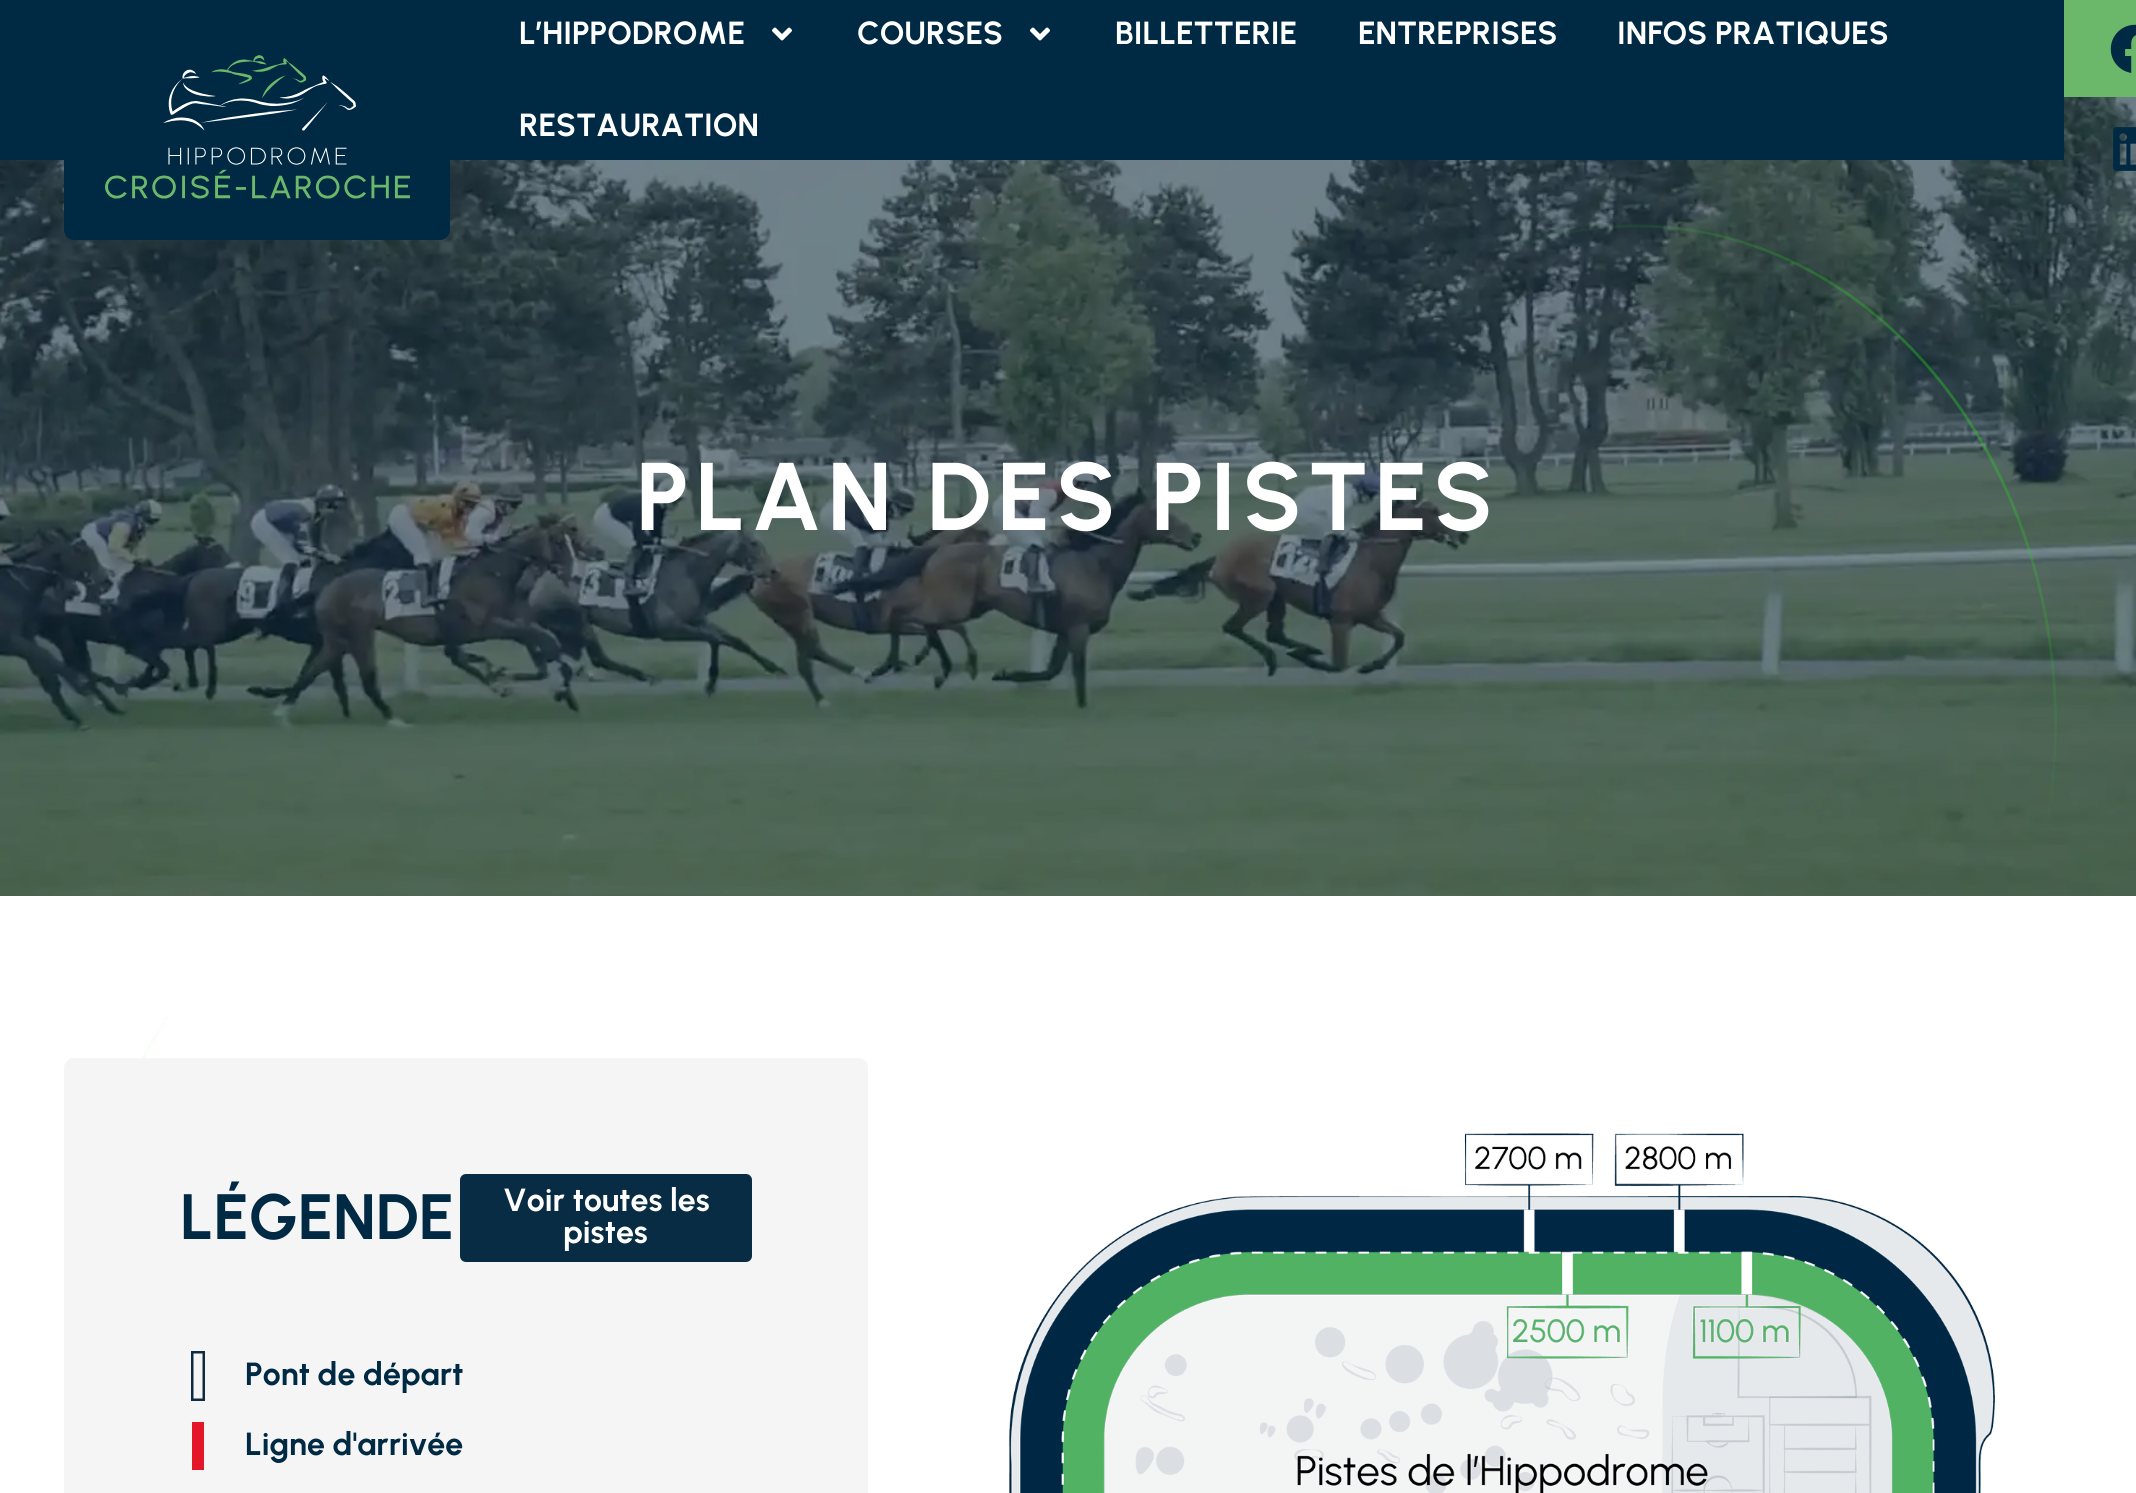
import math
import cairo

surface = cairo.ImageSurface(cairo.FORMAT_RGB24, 2136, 1493)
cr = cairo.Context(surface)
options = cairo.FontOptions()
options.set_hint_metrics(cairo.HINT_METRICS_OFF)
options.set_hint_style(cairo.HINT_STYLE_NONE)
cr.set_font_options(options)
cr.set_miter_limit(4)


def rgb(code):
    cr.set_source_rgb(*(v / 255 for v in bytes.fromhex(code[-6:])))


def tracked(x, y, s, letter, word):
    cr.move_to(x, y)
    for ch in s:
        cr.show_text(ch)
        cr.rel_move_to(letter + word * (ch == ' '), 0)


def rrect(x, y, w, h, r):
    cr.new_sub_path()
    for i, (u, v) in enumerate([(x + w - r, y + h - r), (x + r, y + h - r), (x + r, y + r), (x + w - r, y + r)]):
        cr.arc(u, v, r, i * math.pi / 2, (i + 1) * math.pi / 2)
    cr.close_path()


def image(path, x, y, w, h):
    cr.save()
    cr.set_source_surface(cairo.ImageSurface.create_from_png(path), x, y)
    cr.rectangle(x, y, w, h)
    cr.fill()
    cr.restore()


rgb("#ffffff")
cr.paint()
image("img/5.png", 0, 97, 2136, 799)
rgb("#002943")
cr.rectangle(0, 0, 2064, 160)
cr.fill()
rgb("#6bb86b")
cr.rectangle(2064, 0, 72, 97)
cr.fill()
rgb("#002943")
rrect(64, 16, 386, 224, 10)
cr.fill()
image("img/1.png", 105, 55, 305, 144)
image("img/2.png", 772, 27, 20, 14)
image("img/2.png", 1030, 27, 20, 14)
image("img/3.png", 2110, 24, 26, 49)
image("img/4.png", 2113, 127, 23, 44)
cr.new_path()
cr.move_to(82, 1317.5)
cr.curve_to(82, 1043, 269.5, 820.5, 500, 820.5)
cr.curve_to(731.5, 820.5, 919, 1043.5, 919, 1318.5)
cr.line_to(919, 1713.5)
cr.curve_to(919, 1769.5, 881, 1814.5, 834, 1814.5)
cr.line_to(499.5, 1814.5)
cr.curve_to(269, 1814.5, 82, 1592, 82, 1317.5)
cr.close_path()
gradient = cairo.RadialGradient(0, 0, 0, 0, 0, 1)
gradient.set_matrix(cairo.Matrix(1 / 577, 0, 0, 1 / 666, -1 * 196 / 577, -1 * 1670 / 666))
gradient.add_color_stop_rgba(0, 0.192, 0.831, 0.114, 0.5)
gradient.add_color_stop_rgba(1, 0.192, 0.831, 0.114, 0)
cr.set_source(gradient)
cr.set_line_width(3.5)
cr.stroke()
rgb("#f5f5f5")
rrect(64, 1058, 804, 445, 10)
cr.fill()
rgb("#082c43")
rrect(461, 1175, 290, 86, 5)
cr.fill_preserve()
cr.set_line_width(2)
cr.stroke()
cr.rectangle(192.25, 1352.25, 11.5, 47.5)
rgb("#102b41")
cr.set_line_width(2.5)
cr.stroke()
rgb("#e41729")
cr.rectangle(192, 1422, 12, 48)
cr.fill()
image("img/6.png", 1009, 1133, 986, 360)
cr.select_font_face("Urbanist", cairo.FONT_SLANT_NORMAL, cairo.FONT_WEIGHT_BOLD)
cr.set_font_size(32)
rgb("#ffffff")
for x, y, s in [
    (519, 44, "L’HIPPODROME"),
    (857, 44, "COURSES"),
    (1115, 44, "BILLETTERIE"),
    (1358, 44, "ENTREPRISES"),
    (1617, 44, "INFOS PRATIQUES"),
    (519, 136, "RESTAURATION"),
]:
    cr.move_to(x, y)
    cr.show_text(s)
cr.set_font_size(96)
tracked(636, 530, "PLAN DES PISTES", 6, 0)
cr.new_path()
cr.move_to(1636, 1222.5)
cr.curve_to(1868, 1222.5, 2055.5, 999.5, 2055.5, 724.5)
cr.curve_to(2055.5, 449.5, 1868, 226, 1636, 226)
cr.curve_to(1404.5, 226, 1216.5, 449.5, 1216.5, 724.5)
cr.curve_to(1216.5, 999.5, 1404.5, 1222.5, 1636, 1222.5)
cr.close_path()
gradient = cairo.RadialGradient(0, 0, 0, 0, 0, 1)
gradient.set_matrix(cairo.Matrix(1 / 555, 0, 0, 1 / 483, -1 * 2035 / 555, -1 * 351 / 483))
gradient.add_color_stop_rgba(0, 0.165, 0.792, 0.149, 0.5)
gradient.add_color_stop_rgba(1, 0.165, 0.792, 0.149, 0)
cr.set_source(gradient)
cr.set_line_width(2.8)
cr.stroke()
cr.set_font_size(64)
rgb("#002943")
cr.move_to(180, 1239)
cr.show_text("LÉGENDE")
cr.set_font_size(32)
rgb("#ffffff")
cr.move_to(503, 1211)
cr.show_text("Voir toutes les")
cr.move_to(563, 1243)
cr.show_text("pistes")
rgb("#002943")
cr.move_to(245, 1385)
cr.show_text("Pont de départ")
cr.move_to(245, 1455)
cr.show_text("Ligne d'arrivée")
surface.write_to_png("page.png")
